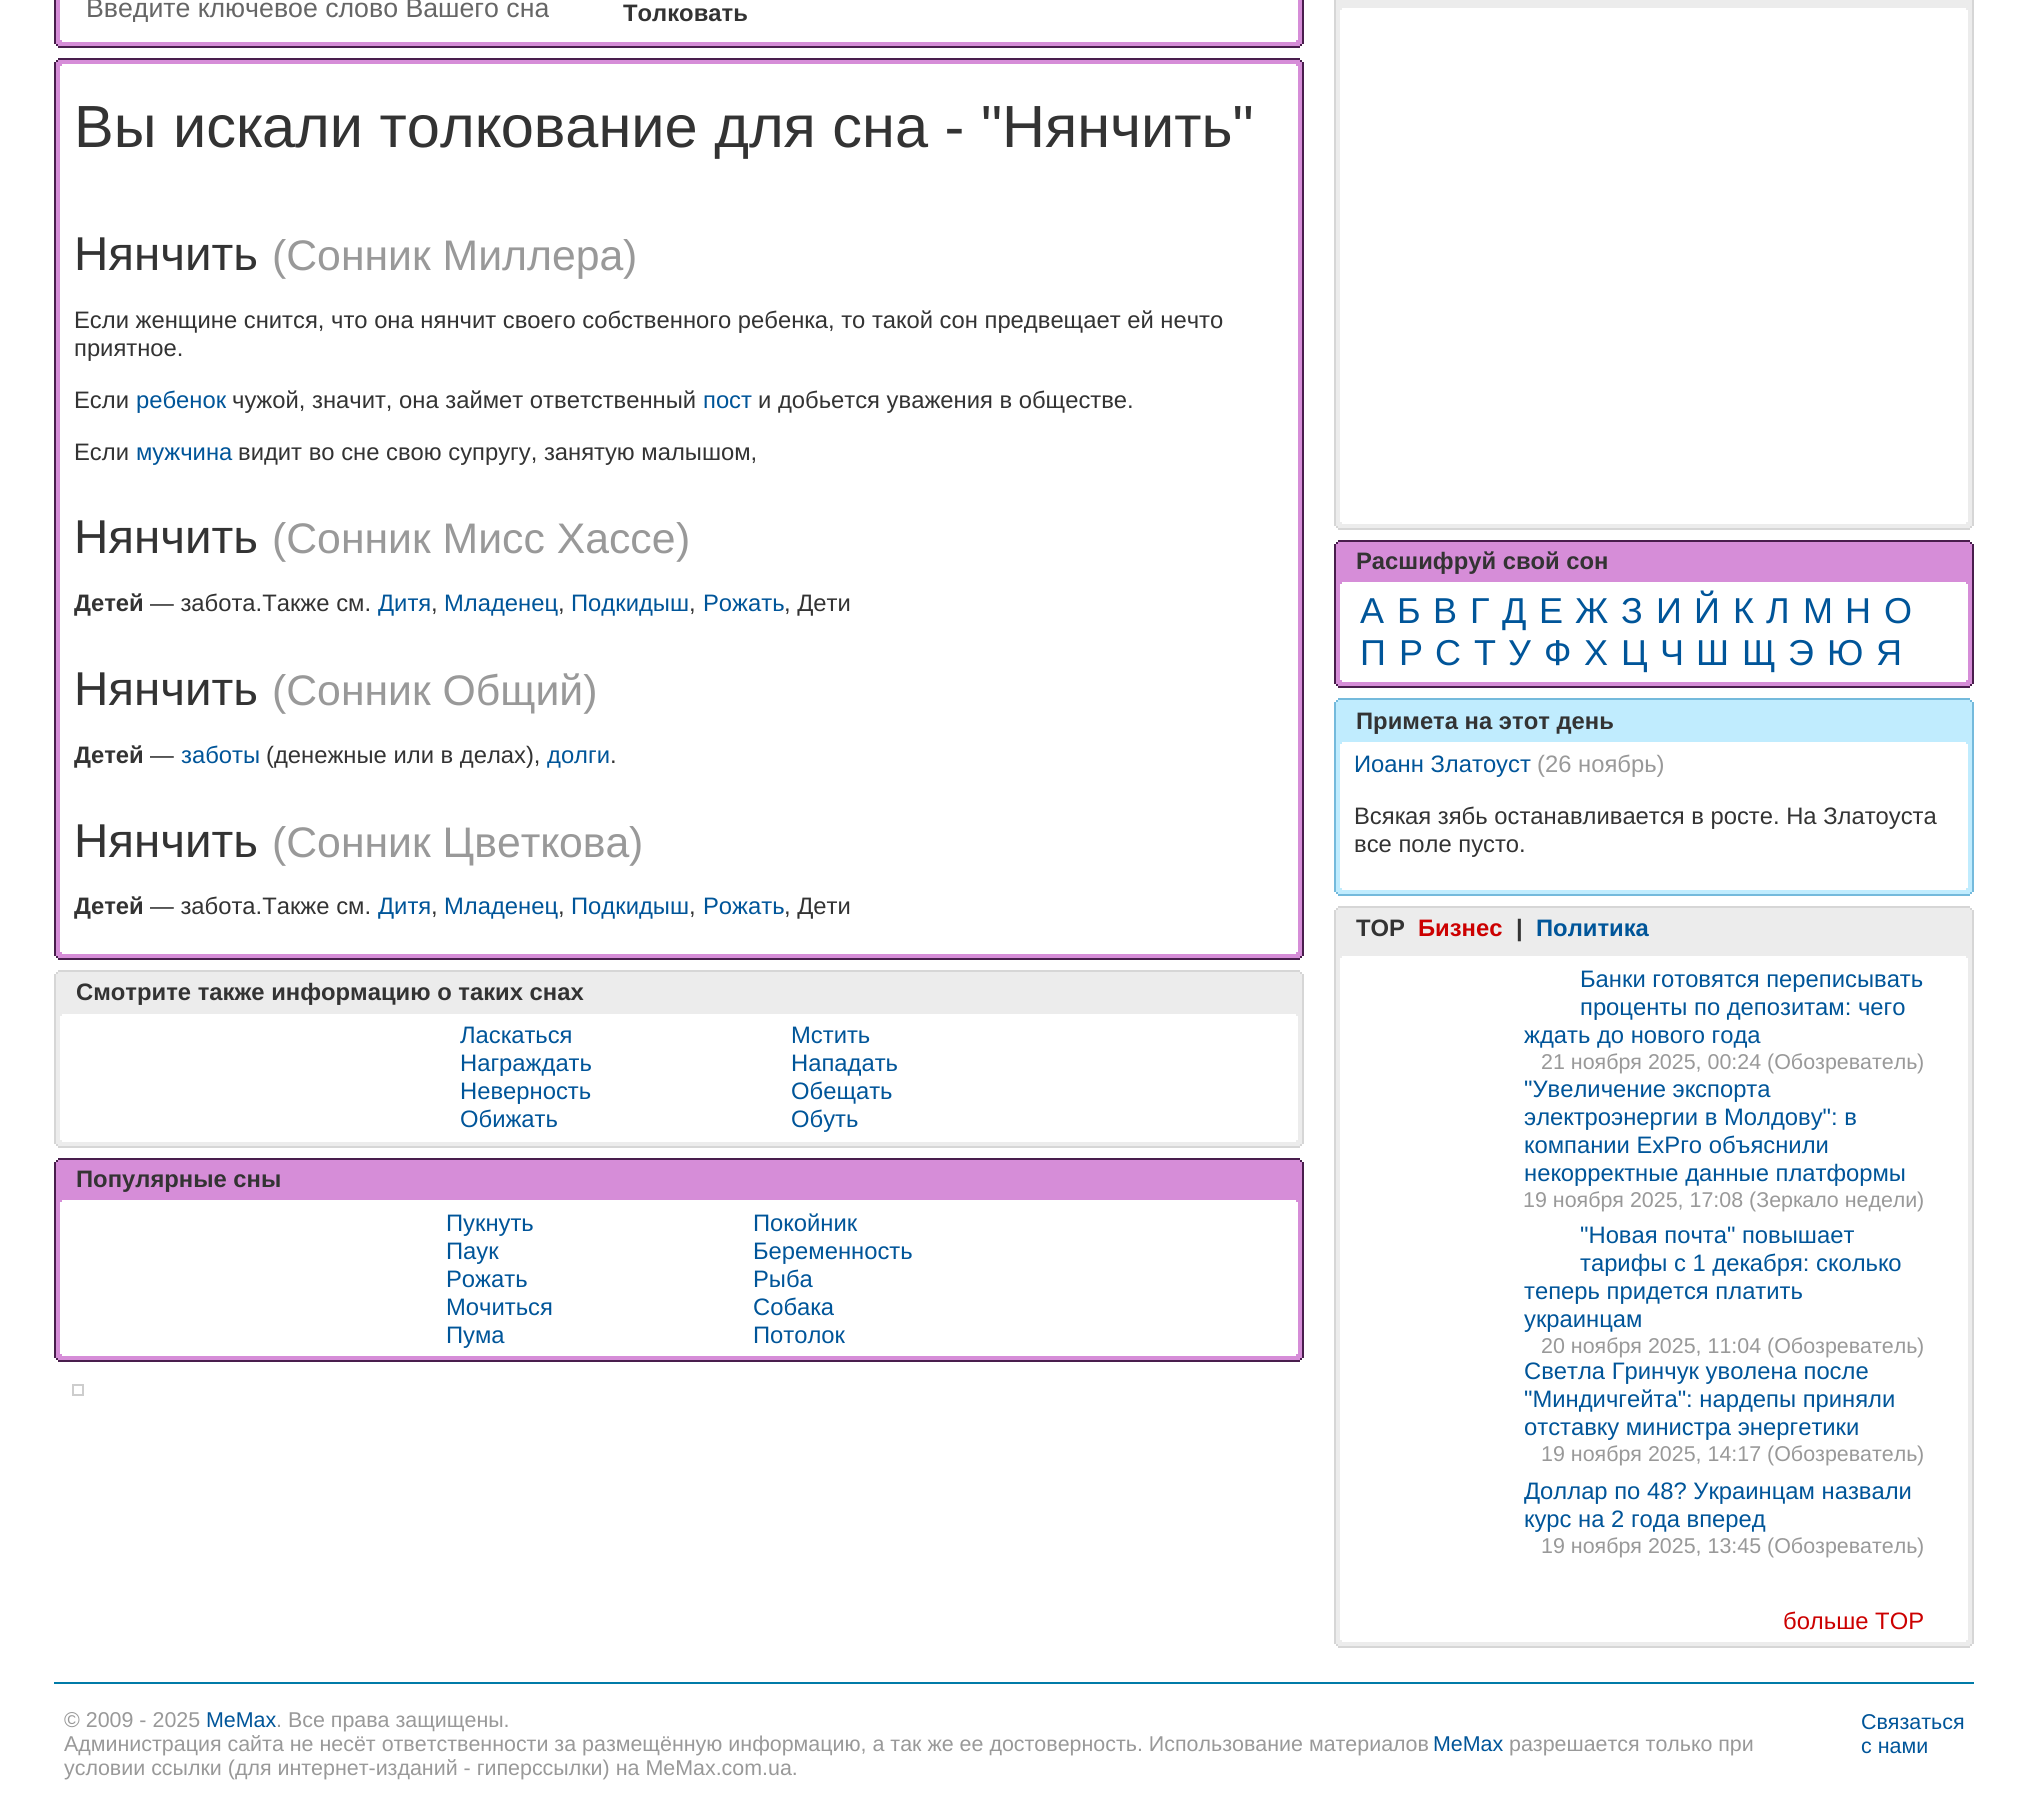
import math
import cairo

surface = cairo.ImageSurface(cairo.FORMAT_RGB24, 2028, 1811)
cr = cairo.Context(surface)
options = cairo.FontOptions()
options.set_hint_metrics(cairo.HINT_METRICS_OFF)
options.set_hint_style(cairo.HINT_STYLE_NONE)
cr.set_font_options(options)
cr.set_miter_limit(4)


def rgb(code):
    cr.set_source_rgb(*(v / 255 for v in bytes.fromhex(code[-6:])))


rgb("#ffffff")
cr.paint()
for x, y, w, h, color in [
    (1302, 0, 2, 42, "#491e4d"),
    (54, 0, 2, 42, "#491e4d"),
    (1298, 0, 4, 40, "#d68dd8"),
    (56, 0, 4, 40, "#d68dd8"),
    (1296, 40, 6, 2, "#d68dd8"),
    (56, 40, 6, 2, "#d68dd8"),
    (54, 42, 1250, 2, "#d68dd8"),
    (1302, 42, 2, 2, "#491e4d"),
    (54, 42, 2, 2, "#491e4d"),
    (56, 44, 1246, 2, "#d68dd8"),
    (1300, 44, 2, 2, "#491e4d"),
    (56, 44, 2, 2, "#491e4d"),
    (58, 46, 1242, 2, "#491e4d"),
    (58, 58, 1242, 2, "#491e4d"),
    (56, 60, 1246, 2, "#d68dd8"),
    (1300, 60, 2, 2, "#491e4d"),
    (56, 60, 2, 2, "#491e4d"),
    (54, 62, 1250, 2, "#d68dd8"),
    (1302, 62, 2, 2, "#491e4d"),
    (54, 62, 2, 2, "#491e4d"),
    (1302, 64, 2, 890, "#491e4d"),
    (54, 64, 2, 890, "#491e4d"),
    (1296, 64, 6, 2, "#d68dd8"),
    (56, 64, 6, 2, "#d68dd8"),
    (1298, 66, 4, 886, "#d68dd8"),
    (56, 66, 4, 886, "#d68dd8"),
    (1296, 952, 6, 2, "#d68dd8"),
    (56, 952, 6, 2, "#d68dd8"),
    (54, 954, 1250, 2, "#d68dd8"),
    (1302, 954, 2, 2, "#491e4d"),
    (54, 954, 2, 2, "#491e4d"),
    (56, 956, 1246, 2, "#d68dd8"),
    (1300, 956, 2, 2, "#491e4d"),
    (56, 956, 2, 2, "#491e4d"),
    (58, 958, 1242, 2, "#491e4d"),
    (58, 970, 1242, 2, "#d6d6d6"),
    (56, 972, 1246, 40, "#ececec"),
    (1300, 972, 2, 2, "#d6d6d6"),
    (56, 972, 2, 2, "#d6d6d6"),
    (1302, 974, 2, 38, "#d6d6d6"),
    (54, 974, 2, 38, "#d6d6d6"),
    (54, 1012, 1250, 2, "#ececec"),
    (1302, 1012, 2, 2, "#d6d6d6"),
    (54, 1012, 2, 2, "#d6d6d6"),
    (1302, 1014, 2, 128, "#d6d6d6"),
    (54, 1014, 2, 128, "#d6d6d6"),
    (1296, 1014, 6, 2, "#ececec"),
    (56, 1014, 6, 2, "#ececec"),
    (1298, 1016, 4, 124, "#ececec"),
    (56, 1016, 4, 124, "#ececec"),
    (1296, 1140, 6, 2, "#ececec"),
    (56, 1140, 6, 2, "#ececec"),
    (54, 1142, 1250, 2, "#ececec"),
    (1302, 1142, 2, 2, "#d6d6d6"),
    (54, 1142, 2, 2, "#d6d6d6"),
    (56, 1144, 1246, 2, "#ececec"),
    (1300, 1144, 2, 2, "#d6d6d6"),
    (56, 1144, 2, 2, "#d6d6d6"),
    (58, 1146, 1242, 2, "#d6d6d6"),
    (58, 1158, 1242, 2, "#491e4d"),
    (56, 1160, 1246, 38, "#d68dd8"),
    (1300, 1160, 2, 2, "#491e4d"),
    (56, 1160, 2, 2, "#491e4d"),
    (1302, 1162, 2, 36, "#491e4d"),
    (54, 1162, 2, 36, "#491e4d"),
    (54, 1198, 1250, 2, "#d68dd8"),
    (1302, 1198, 2, 2, "#491e4d"),
    (54, 1198, 2, 2, "#491e4d"),
    (1302, 1200, 2, 156, "#491e4d"),
    (54, 1200, 2, 156, "#491e4d"),
    (1296, 1200, 6, 2, "#d68dd8"),
    (56, 1200, 6, 2, "#d68dd8"),
    (1298, 1202, 4, 152, "#d68dd8"),
    (56, 1202, 4, 152, "#d68dd8"),
    (1296, 1354, 6, 2, "#d68dd8"),
    (56, 1354, 6, 2, "#d68dd8"),
    (54, 1356, 1250, 2, "#d68dd8"),
    (1302, 1356, 2, 2, "#491e4d"),
    (54, 1356, 2, 2, "#491e4d"),
    (56, 1358, 1246, 2, "#d68dd8"),
    (1300, 1358, 2, 2, "#491e4d"),
    (56, 1358, 2, 2, "#491e4d"),
    (58, 1360, 1242, 2, "#491e4d"),
]:
    rgb(color)
    cr.rectangle(x, y, w, h)
    cr.fill()
cr.rectangle(73, 1385, 10, 10)
rgb("#cdcdcd")
cr.stroke()
for x, y, w, h, color in [
    (1334, 0, 640, 8, "#ececec"),
    (1972, 0, 2, 6, "#d6d6d6"),
    (1334, 0, 2, 6, "#d6d6d6"),
    (1972, 6, 2, 518, "#d6d6d6"),
    (1334, 6, 2, 518, "#d6d6d6"),
    (1966, 8, 6, 2, "#ececec"),
    (1336, 8, 6, 2, "#ececec"),
    (1968, 10, 4, 512, "#ececec"),
    (1336, 10, 4, 512, "#ececec"),
    (1966, 522, 6, 2, "#ececec"),
    (1336, 522, 6, 2, "#ececec"),
    (1334, 524, 640, 2, "#ececec"),
    (1972, 524, 2, 2, "#d6d6d6"),
    (1334, 524, 2, 2, "#d6d6d6"),
    (1336, 526, 636, 2, "#ececec"),
    (1970, 526, 2, 2, "#d6d6d6"),
    (1336, 526, 2, 2, "#d6d6d6"),
    (1338, 528, 632, 2, "#d6d6d6"),
    (1338, 540, 632, 2, "#491e4d"),
    (1336, 542, 636, 38, "#d68dd8"),
    (1970, 542, 2, 2, "#491e4d"),
    (1336, 542, 2, 2, "#491e4d"),
    (1972, 544, 2, 36, "#491e4d"),
    (1334, 544, 2, 36, "#491e4d"),
    (1334, 580, 640, 2, "#d68dd8"),
    (1972, 580, 2, 2, "#491e4d"),
    (1334, 580, 2, 2, "#491e4d"),
    (1972, 582, 2, 100, "#491e4d"),
    (1334, 582, 2, 100, "#491e4d"),
    (1966, 582, 6, 2, "#d68dd8"),
    (1336, 582, 6, 2, "#d68dd8"),
    (1968, 584, 4, 96, "#d68dd8"),
    (1336, 584, 4, 96, "#d68dd8"),
    (1966, 680, 6, 2, "#d68dd8"),
    (1336, 680, 6, 2, "#d68dd8"),
    (1334, 682, 640, 2, "#d68dd8"),
    (1972, 682, 2, 2, "#491e4d"),
    (1334, 682, 2, 2, "#491e4d"),
    (1336, 684, 636, 2, "#d68dd8"),
    (1970, 684, 2, 2, "#491e4d"),
    (1336, 684, 2, 2, "#491e4d"),
    (1338, 686, 632, 2, "#491e4d"),
    (1338, 698, 632, 2, "#74badc"),
    (1336, 700, 636, 40, "#c0ecfe"),
    (1970, 700, 2, 2, "#74badc"),
    (1336, 700, 2, 2, "#74badc"),
    (1972, 702, 2, 38, "#74badc"),
    (1334, 702, 2, 38, "#74badc"),
    (1334, 740, 640, 2, "#c0ecfe"),
    (1972, 740, 2, 2, "#74badc"),
    (1334, 740, 2, 2, "#74badc"),
    (1972, 742, 2, 148, "#74badc"),
    (1334, 742, 2, 148, "#74badc"),
    (1966, 742, 6, 2, "#c0ecfe"),
    (1336, 742, 6, 2, "#c0ecfe"),
    (1968, 744, 4, 144, "#c0ecfe"),
    (1336, 744, 4, 144, "#c0ecfe"),
    (1966, 888, 6, 2, "#c0ecfe"),
    (1336, 888, 6, 2, "#c0ecfe"),
    (1334, 890, 640, 2, "#c0ecfe"),
    (1972, 890, 2, 2, "#74badc"),
    (1334, 890, 2, 2, "#74badc"),
    (1336, 892, 636, 2, "#c0ecfe"),
    (1970, 892, 2, 2, "#74badc"),
    (1336, 892, 2, 2, "#74badc"),
    (1338, 894, 632, 2, "#74badc"),
    (1338, 906, 632, 2, "#d6d6d6"),
    (1336, 908, 636, 46, "#ececec"),
    (1970, 908, 2, 2, "#d6d6d6"),
    (1336, 908, 2, 2, "#d6d6d6"),
    (1972, 910, 2, 44, "#d6d6d6"),
    (1334, 910, 2, 44, "#d6d6d6"),
    (1334, 954, 640, 2, "#ececec"),
    (1972, 954, 2, 2, "#d6d6d6"),
    (1334, 954, 2, 2, "#d6d6d6"),
    (1972, 956, 2, 686, "#d6d6d6"),
    (1334, 956, 2, 686, "#d6d6d6"),
    (1966, 956, 6, 2, "#ececec"),
    (1336, 956, 6, 2, "#ececec"),
    (1968, 958, 4, 682, "#ececec"),
    (1336, 958, 4, 682, "#ececec"),
    (1966, 1640, 6, 2, "#ececec"),
    (1336, 1640, 6, 2, "#ececec"),
    (1334, 1642, 640, 2, "#ececec"),
    (1972, 1642, 2, 2, "#d6d6d6"),
    (1334, 1642, 2, 2, "#d6d6d6"),
    (1336, 1644, 636, 2, "#ececec"),
    (1970, 1644, 2, 2, "#d6d6d6"),
    (1336, 1644, 2, 2, "#d6d6d6"),
    (1338, 1646, 632, 2, "#d6d6d6"),
    (54, 1682, 1920, 2, "#007ba8"),
]:
    rgb(color)
    cr.rectangle(x, y, w, h)
    cr.fill()
cr.save()
cr.rectangle(86, 0, 498, 22)
cr.clip()
cr.select_font_face("Liberation Sans")
cr.set_font_size(26.7)
rgb("#666666")
cr.move_to(86, 17)
cr.show_text("Введите ключевое слово Вашего сна")
cr.restore()
cr.select_font_face("Liberation Sans", cairo.FONT_SLANT_NORMAL, cairo.FONT_WEIGHT_BOLD)
cr.set_font_size(23.8)
rgb("#333333")
cr.move_to(623, 21)
cr.show_text("Толковать")
cr.select_font_face("Liberation Sans")
cr.set_font_size(59.5)
cr.move_to(74, 147)
cr.show_text("Вы искали толкование для сна - \"Нянчить\"")
cr.set_font_size(47.5)
cr.move_to(74, 270)
cr.show_text("Нянчить")
cr.set_font_size(42.75)
rgb("#999999")
cr.move_to(272, 270)
cr.show_text("(Сонник Миллера")
cr.move_to(623, 270)
cr.show_text(")")
cr.set_font_size(23.8)
rgb("#333333")
for x, y, s in [
    (74, 328, "Если женщине снится, что она нянчит своего собственного ребенка, то такой сон предвещает ей нечто"),
    (74, 356, "приятное."),
    (74, 408, "Если"),
]:
    cr.move_to(x, y)
    cr.show_text(s)
rgb("#005599")
cr.move_to(136, 408)
cr.show_text("ребенок")
rgb("#333333")
cr.move_to(232, 408)
cr.show_text("чужой, значит, она займет ответственный")
rgb("#005599")
cr.move_to(703, 408)
cr.show_text("пост")
rgb("#333333")
cr.move_to(758, 408)
cr.show_text("и добьется уважения в обществе.")
cr.move_to(74, 460)
cr.show_text("Если")
rgb("#005599")
cr.move_to(136, 460)
cr.show_text("мужчина")
rgb("#333333")
cr.move_to(238, 460)
cr.show_text("видит во сне свою супругу, занятую малышом,")
cr.set_font_size(47.5)
cr.move_to(74, 553)
cr.show_text("Нянчить")
cr.set_font_size(42.75)
rgb("#999999")
cr.move_to(272, 553)
cr.show_text("(Сонник Мисс Хассе")
cr.move_to(676, 553)
cr.show_text(")")
cr.select_font_face("Liberation Sans", cairo.FONT_SLANT_NORMAL, cairo.FONT_WEIGHT_BOLD)
cr.set_font_size(23.8)
rgb("#333333")
cr.move_to(74, 611)
cr.show_text("Детей")
cr.select_font_face("Liberation Sans")
cr.move_to(150, 611)
cr.show_text("— забота.Также см.")
rgb("#005599")
cr.move_to(378, 611)
cr.show_text("Дитя")
rgb("#333333")
cr.move_to(431, 611)
cr.show_text(",")
rgb("#005599")
cr.move_to(444, 611)
cr.show_text("Младенец")
rgb("#333333")
cr.move_to(558, 611)
cr.show_text(",")
rgb("#005599")
cr.move_to(571, 611)
cr.show_text("Подкидыш")
rgb("#333333")
cr.move_to(689, 611)
cr.show_text(",")
rgb("#005599")
cr.move_to(703, 611)
cr.show_text("Рожать")
rgb("#333333")
cr.move_to(784, 611)
cr.show_text(", Дети")
cr.set_font_size(47.5)
cr.move_to(74, 705)
cr.show_text("Нянчить")
cr.set_font_size(42.75)
rgb("#999999")
cr.move_to(272, 705)
cr.show_text("(Сонник Общий)")
cr.select_font_face("Liberation Sans", cairo.FONT_SLANT_NORMAL, cairo.FONT_WEIGHT_BOLD)
cr.set_font_size(23.8)
rgb("#333333")
cr.move_to(74, 763)
cr.show_text("Детей")
cr.select_font_face("Liberation Sans")
cr.move_to(150, 763)
cr.show_text("—")
rgb("#005599")
cr.move_to(181, 763)
cr.show_text("заботы")
rgb("#333333")
cr.move_to(266, 763)
cr.show_text("(денежные или в делах),")
rgb("#005599")
cr.move_to(547, 763)
cr.show_text("долги")
rgb("#333333")
cr.move_to(610, 763)
cr.show_text(".")
cr.set_font_size(47.5)
cr.move_to(74, 857)
cr.show_text("Нянчить")
cr.set_font_size(42.75)
rgb("#999999")
cr.move_to(272, 857)
cr.show_text("(Сонник Цветкова")
cr.move_to(629, 857)
cr.show_text(")")
cr.select_font_face("Liberation Sans", cairo.FONT_SLANT_NORMAL, cairo.FONT_WEIGHT_BOLD)
cr.set_font_size(23.8)
rgb("#333333")
cr.move_to(74, 914)
cr.show_text("Детей")
cr.select_font_face("Liberation Sans")
cr.move_to(150, 914)
cr.show_text("— забота.Также см.")
rgb("#005599")
cr.move_to(378, 914)
cr.show_text("Дитя")
rgb("#333333")
cr.move_to(431, 914)
cr.show_text(",")
rgb("#005599")
cr.move_to(444, 914)
cr.show_text("Младенец")
rgb("#333333")
cr.move_to(558, 914)
cr.show_text(",")
rgb("#005599")
cr.move_to(571, 914)
cr.show_text("Подкидыш")
rgb("#333333")
cr.move_to(689, 914)
cr.show_text(",")
rgb("#005599")
cr.move_to(703, 914)
cr.show_text("Рожать")
rgb("#333333")
cr.move_to(784, 914)
cr.show_text(", Дети")
cr.select_font_face("Liberation Sans", cairo.FONT_SLANT_NORMAL, cairo.FONT_WEIGHT_BOLD)
cr.move_to(76, 1000)
cr.show_text("Смотрите также информацию о таких снах")
cr.select_font_face("Liberation Sans")
rgb("#005599")
for x, y, s in [
    (460, 1043, "Ласкаться"),
    (791, 1043, "Мстить"),
    (460, 1071, "Награждать"),
    (791, 1071, "Нападать"),
    (460, 1099, "Неверность"),
    (791, 1099, "Обещать"),
    (460, 1127, "Обижать"),
    (791, 1127, "Обуть"),
]:
    cr.move_to(x, y)
    cr.show_text(s)
cr.select_font_face("Liberation Sans", cairo.FONT_SLANT_NORMAL, cairo.FONT_WEIGHT_BOLD)
rgb("#333333")
cr.move_to(76, 1187)
cr.show_text("Популярные сны")
cr.select_font_face("Liberation Sans")
rgb("#005599")
for x, y, s in [
    (446, 1231, "Пукнуть"),
    (753, 1231, "Покойник"),
    (446, 1259, "Паук"),
    (753, 1259, "Беременность"),
    (446, 1287, "Рожать"),
    (753, 1287, "Рыба"),
    (446, 1315, "Мочиться"),
    (753, 1315, "Собака"),
    (446, 1343, "Пума"),
    (753, 1343, "Потолок"),
]:
    cr.move_to(x, y)
    cr.show_text(s)
cr.select_font_face("Liberation Sans", cairo.FONT_SLANT_NORMAL, cairo.FONT_WEIGHT_BOLD)
rgb("#333333")
cr.move_to(1356, 569)
cr.show_text("Расшифруй свой сон")
cr.select_font_face("Liberation Sans")
cr.set_font_size(36)
rgb("#005599")
for x, y, s in [
    (1360, 623, "А"),
    (1397, 623, "Б"),
    (1433, 623, "В"),
    (1470, 623, "Г"),
    (1502, 623, "Д"),
    (1539, 623, "Е"),
    (1575, 623, "Ж"),
    (1621, 623, "З"),
    (1656, 623, "И"),
    (1694, 623, "Й"),
    (1733, 623, "К"),
    (1766, 623, "Л"),
    (1803, 623, "М"),
    (1845, 623, "Н"),
    (1884, 623, "О"),
    (1360, 665, "П"),
    (1399, 665, "Р"),
    (1435, 665, "С"),
    (1474, 665, "Т"),
    (1508, 665, "У"),
    (1544, 665, "Ф"),
    (1584, 665, "Х"),
    (1621, 665, "Ц"),
    (1660, 665, "Ч"),
    (1696, 665, "Ш"),
    (1742, 665, "Щ"),
    (1788, 665, "Э"),
    (1827, 665, "Ю"),
    (1876, 665, "Я"),
]:
    cr.move_to(x, y)
    cr.show_text(s)
cr.select_font_face("Liberation Sans", cairo.FONT_SLANT_NORMAL, cairo.FONT_WEIGHT_BOLD)
cr.set_font_size(23.8)
rgb("#333333")
cr.move_to(1356, 729)
cr.show_text("Примета на этот день")
cr.select_font_face("Liberation Sans")
rgb("#005599")
cr.move_to(1354, 772)
cr.show_text("Иоанн Златоуст")
rgb("#999999")
cr.move_to(1537, 772)
cr.show_text("(26 ноябрь)")
rgb("#333333")
cr.move_to(1354, 824)
cr.show_text("Всякая зябь останавливается в росте. На Златоуста")
cr.move_to(1354, 852)
cr.show_text("все поле пусто.")
cr.select_font_face("Liberation Sans", cairo.FONT_SLANT_NORMAL, cairo.FONT_WEIGHT_BOLD)
cr.move_to(1356, 936)
cr.show_text("TOP")
rgb("#cc0000")
cr.move_to(1418, 936)
cr.show_text("Бизнес")
rgb("#333333")
cr.move_to(1516, 936)
cr.show_text("|")
rgb("#005599")
cr.move_to(1536, 936)
cr.show_text("Политика")
cr.select_font_face("Liberation Sans")
for x, y, s in [
    (1580, 987, "Банки готовятся переписывать"),
    (1580, 1015, "проценты по депозитам: чего"),
    (1524, 1043, "ждать до нового года"),
]:
    cr.move_to(x, y)
    cr.show_text(s)
cr.set_font_size(21.43)
rgb("#999999")
cr.move_to(1541, 1069)
cr.show_text("21 ноября 2025, 00:24 (Обозреватель")
cr.move_to(1917, 1069)
cr.show_text(")")
cr.set_font_size(23.8)
rgb("#005599")
for x, y, s in [
    (1524, 1097, "\"Увеличение экспорта"),
    (1524, 1125, "электроэнергии в Молдову\": в"),
    (1524, 1153, "компании ЕхРго объяснили"),
    (1524, 1181, "некорректные данные платформы"),
]:
    cr.move_to(x, y)
    cr.show_text(s)
cr.set_font_size(21.43)
rgb("#999999")
cr.move_to(1523, 1207)
cr.show_text("19 ноября 2025, 17:08 (Зеркало недели")
cr.move_to(1917, 1207)
cr.show_text(")")
cr.set_font_size(23.8)
rgb("#005599")
for x, y, s in [
    (1580, 1243, "\"Новая почта\" повышает"),
    (1580, 1271, "тарифы с 1 декабря: сколько"),
    (1524, 1299, "теперь придется платить"),
    (1524, 1327, "украинцам"),
]:
    cr.move_to(x, y)
    cr.show_text(s)
cr.set_font_size(21.43)
rgb("#999999")
cr.move_to(1541, 1353)
cr.show_text("20 ноября 2025, 11:04 (Обозреватель")
cr.move_to(1917, 1353)
cr.show_text(")")
cr.set_font_size(23.8)
rgb("#005599")
for x, y, s in [
    (1524, 1379, "Светла Гринчук уволена после"),
    (1524, 1407, "\"Миндичгейта\": нардепы приняли"),
    (1524, 1435, "отставку министра энергетики"),
]:
    cr.move_to(x, y)
    cr.show_text(s)
cr.set_font_size(21.43)
rgb("#999999")
cr.move_to(1541, 1461)
cr.show_text("19 ноября 2025, 14:17 (Обозреватель")
cr.move_to(1917, 1461)
cr.show_text(")")
cr.set_font_size(23.8)
rgb("#005599")
cr.move_to(1524, 1499)
cr.show_text("Доллар по 48? Украинцам назвали")
cr.move_to(1524, 1527)
cr.show_text("курс на 2 года вперед")
cr.set_font_size(21.43)
rgb("#999999")
cr.move_to(1541, 1553)
cr.show_text("19 ноября 2025, 13:45 (Обозреватель")
cr.move_to(1917, 1553)
cr.show_text(")")
cr.set_font_size(23.8)
rgb("#cc0000")
cr.move_to(1783, 1629)
cr.show_text("больше TOP")
cr.set_font_size(21.43)
rgb("#999999")
cr.move_to(64, 1727)
cr.show_text("© 2009 - 2025")
rgb("#005599")
cr.move_to(206, 1727)
cr.show_text("MeMax")
rgb("#999999")
cr.move_to(276, 1727)
cr.show_text(". Все права защищены.")
cr.move_to(64, 1751)
cr.show_text("Администрация сайта не несёт ответственности за размещённую информацию, а так же ее достоверность. Использование материалов")
rgb("#005599")
cr.move_to(1433, 1751)
cr.show_text("MeMax")
rgb("#999999")
cr.move_to(1509, 1751)
cr.show_text("разрешается только при")
cr.move_to(64, 1775)
cr.show_text("условии ссылки (для интернет-изданий - гиперссылки) на MeMax.com.ua.")
rgb("#005599")
cr.move_to(1861, 1729)
cr.show_text("Связаться")
cr.move_to(1861, 1753)
cr.show_text("с нами")
surface.write_to_png("page.png")
